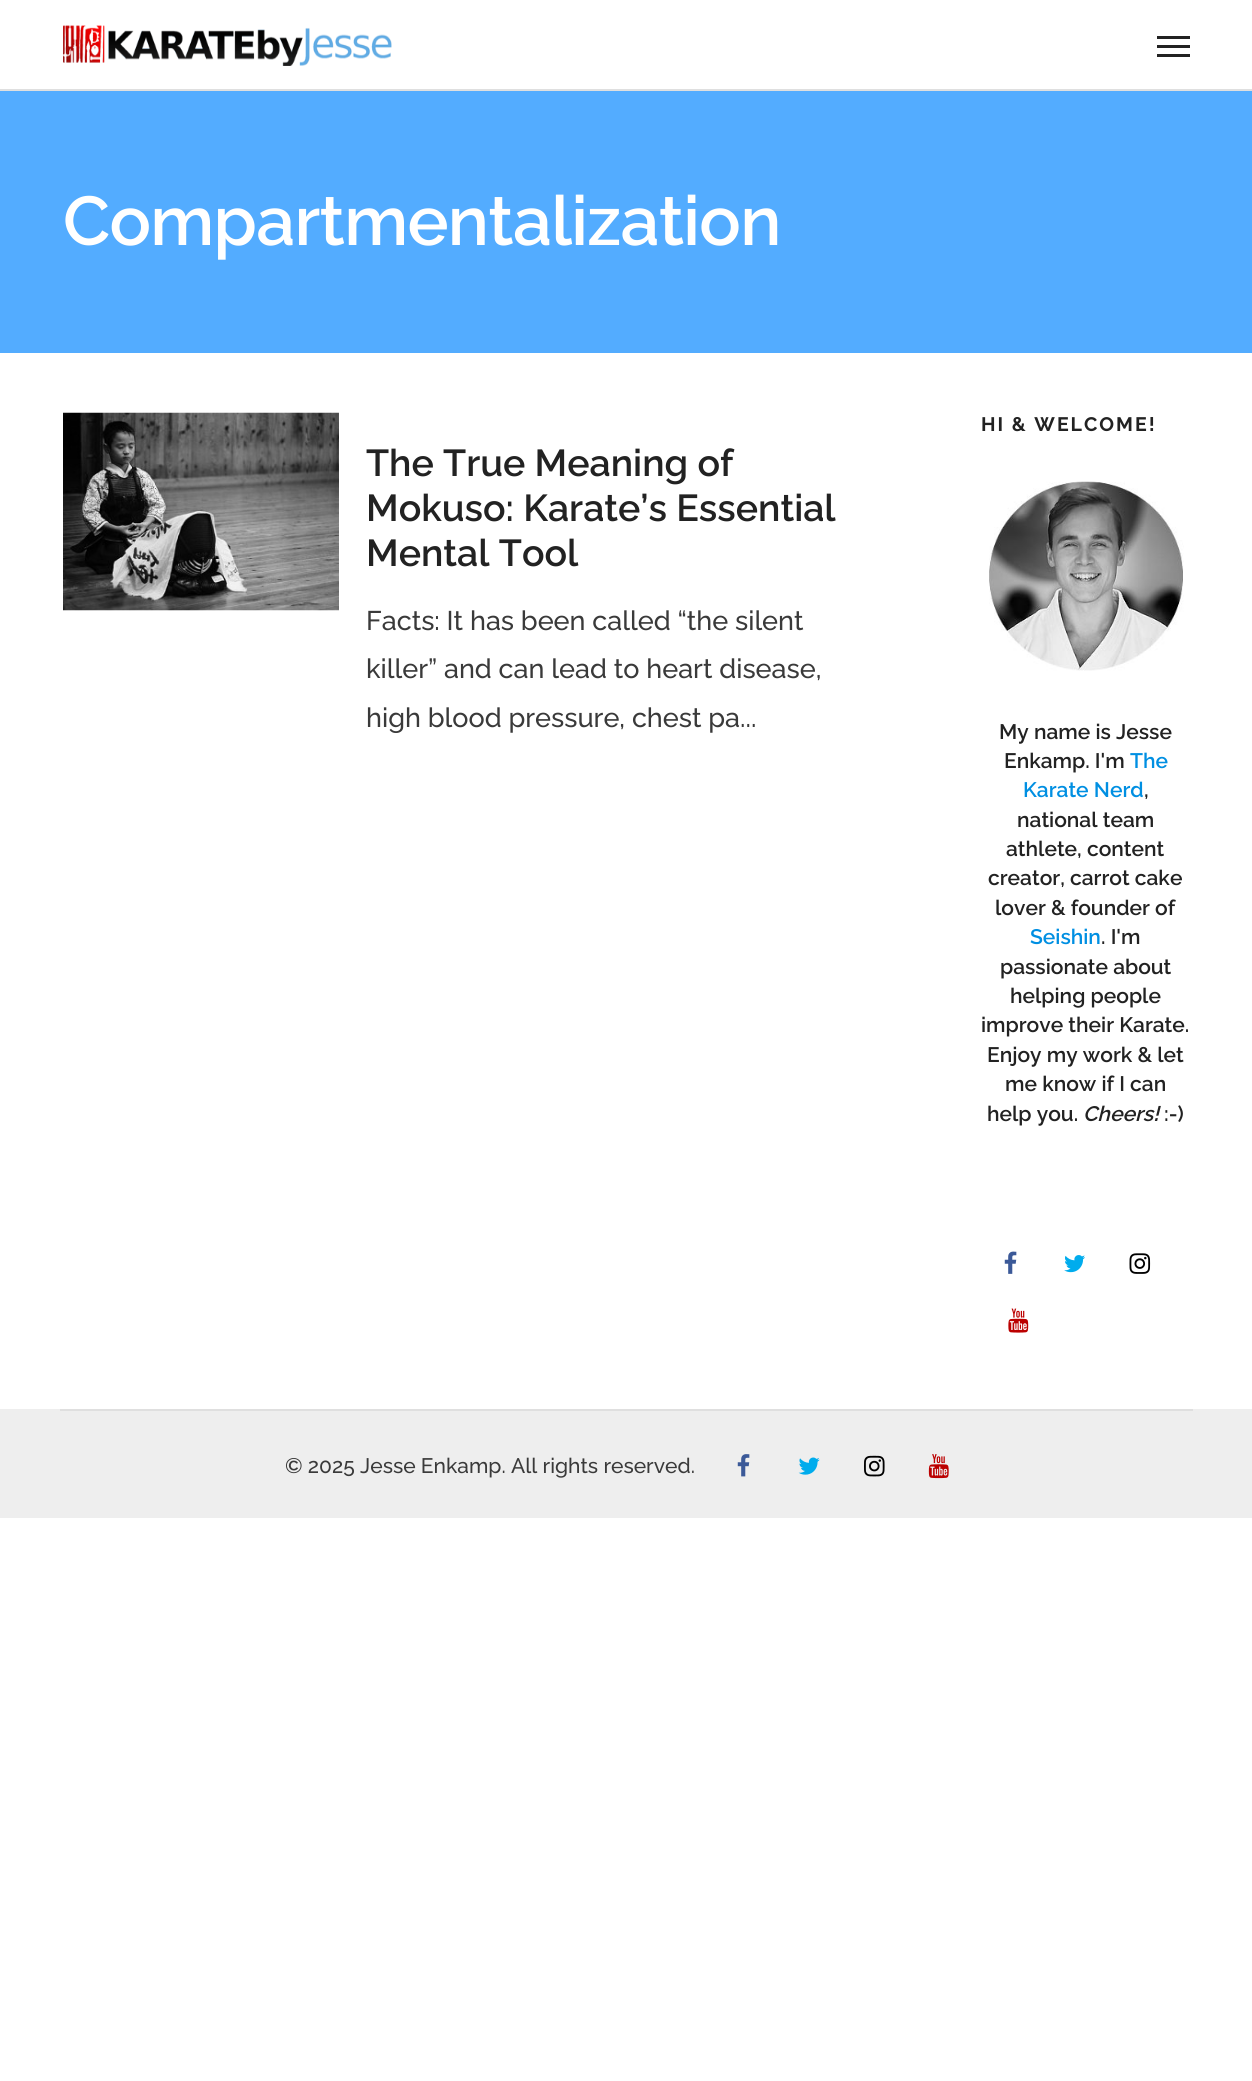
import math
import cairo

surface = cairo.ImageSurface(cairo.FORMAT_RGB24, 1252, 2081)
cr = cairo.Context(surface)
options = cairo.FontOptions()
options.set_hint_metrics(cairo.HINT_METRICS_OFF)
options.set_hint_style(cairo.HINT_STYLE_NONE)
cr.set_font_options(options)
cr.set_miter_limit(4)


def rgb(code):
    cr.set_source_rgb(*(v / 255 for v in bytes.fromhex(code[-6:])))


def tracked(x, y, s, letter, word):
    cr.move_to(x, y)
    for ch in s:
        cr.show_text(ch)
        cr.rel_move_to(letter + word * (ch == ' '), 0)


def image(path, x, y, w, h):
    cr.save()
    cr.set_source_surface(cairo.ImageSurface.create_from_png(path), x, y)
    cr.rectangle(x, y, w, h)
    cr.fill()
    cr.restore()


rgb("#ffffff")
cr.paint()
rgb("#dfdfdf")
cr.rectangle(0, 89, 1252, 2)
cr.fill()
image("img/1.png", 63, 25, 329, 41)
for x, y, w, h, color in [
    (1157, 45, 33, 3, "#222222"),
    (1157, 36, 33, 3, "#222222"),
    (1157, 54, 33, 3, "#222222"),
    (0, 91, 1252, 262, "#53acff"),
]:
    rgb(color)
    cr.rectangle(x, y, w, h)
    cr.fill()
image("img/2.png", 63, 412, 276, 199)
image("img/3.png", 989, 481, 195, 190)
image("img/4.png", 1004, 1251, 13, 23)
image("img/5.png", 1064, 1255, 21, 18)
image("img/6.png", 1129, 1253, 22, 21)
image("img/7.png", 1008, 1308, 21, 25)
rgb("#eeeeee")
cr.rectangle(0, 1409, 1252, 109)
cr.fill()
rgb("#dfdfdf")
cr.rectangle(60, 1409, 1133, 2)
cr.fill()
image("img/8.png", 737, 1454, 13, 23)
image("img/9.png", 798, 1457, 22, 18)
image("img/10.png", 864, 1455, 21, 22)
image("img/11.png", 928, 1454, 21, 25)
cr.select_font_face("Raleway SemiBold")
cr.set_font_size(69)
rgb("#ffffff")
tracked(63, 245, "Compartmentalization", -0.7, 0)
cr.set_font_size(37.5)
rgb("#222222")
for x, y, s in [
    (366, 476, "The True Meaning of"),
    (366, 521, "Mokuso: Karate’s Essential"),
    (366, 566, "Mental Tool"),
]:
    cr.move_to(x, y)
    cr.show_text(s)
cr.select_font_face("Raleway Medium")
cr.set_font_size(27)
rgb("#3a3a3a")
for x, y, s in [
    (366, 630, "Facts: It has been called “the silent"),
    (366, 678, "killer” and can lead to heart disease,"),
    (366, 727, "high blood pressure, chest pa..."),
]:
    cr.move_to(x, y)
    cr.show_text(s)
cr.select_font_face("Raleway", cairo.FONT_SLANT_NORMAL, cairo.FONT_WEIGHT_BOLD)
cr.set_font_size(19.5)
rgb("#222222")
tracked(981, 431, "HI & WELCOME!", 2, 0)
cr.select_font_face("Raleway SemiBold")
cr.set_font_size(21)
cr.move_to(999, 739)
cr.show_text("My name is Jesse")
cr.move_to(1004, 768)
cr.show_text("Enkamp. I'm")
rgb("#008fe2")
cr.move_to(1130, 768)
cr.show_text("The")
cr.move_to(1023, 797)
cr.show_text("Karate Nerd")
rgb("#222222")
for x, y, s in [
    (1144, 797, ","),
    (1017, 827, "national team"),
    (1006, 856, "athlete, content"),
    (988, 885, "creator, carrot cake"),
    (995, 915, "lover & founder of"),
]:
    cr.move_to(x, y)
    cr.show_text(s)
rgb("#008fe2")
cr.move_to(1030, 944)
cr.show_text("Seishin")
rgb("#222222")
for x, y, s in [
    (1101, 944, ". I'm"),
    (1000, 974, "passionate about"),
    (1010, 1003, "helping people"),
    (981, 1032, "improve their Karate."),
    (987, 1062, "Enjoy my work & let"),
    (1005, 1091, "me know if I can"),
    (987, 1121, "help you."),
]:
    cr.move_to(x, y)
    cr.show_text(s)
cr.select_font_face("Raleway SemiBold", cairo.FONT_SLANT_ITALIC)
cr.move_to(1083, 1121)
cr.show_text("Cheers!")
cr.select_font_face("Raleway SemiBold")
cr.move_to(1164, 1121)
cr.show_text(":-)")
cr.select_font_face("Raleway Medium")
rgb("#3a3a3a")
cr.move_to(285, 1473)
cr.show_text("© 2025 Jesse Enkamp. All rights reserved.")
surface.write_to_png("page.png")
